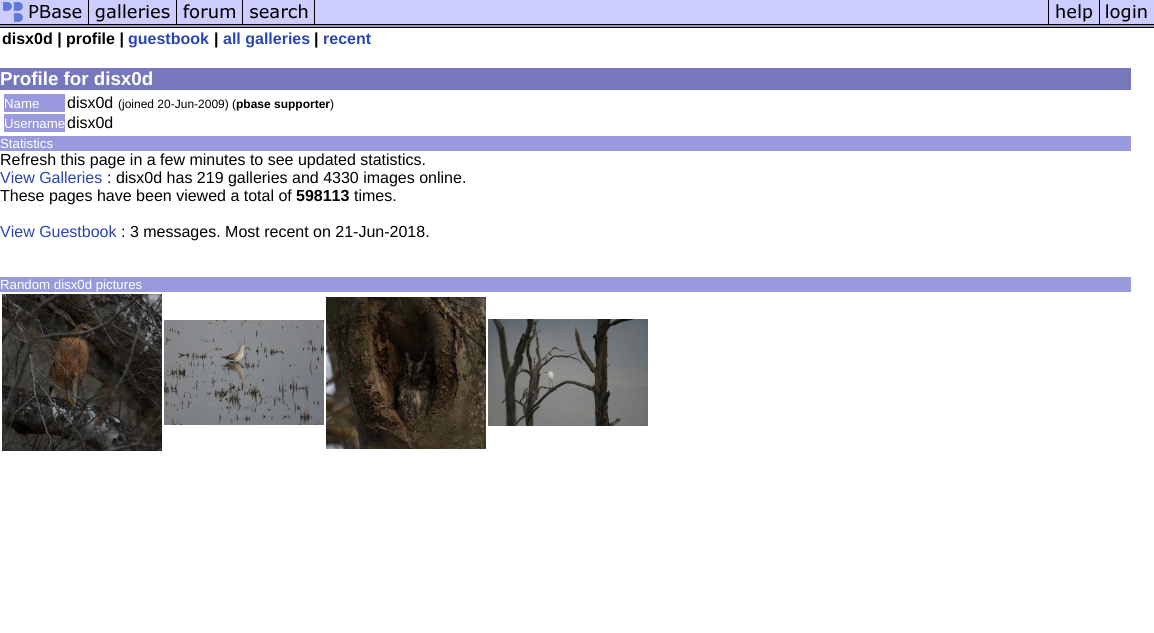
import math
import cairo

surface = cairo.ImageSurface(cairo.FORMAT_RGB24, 1154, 633)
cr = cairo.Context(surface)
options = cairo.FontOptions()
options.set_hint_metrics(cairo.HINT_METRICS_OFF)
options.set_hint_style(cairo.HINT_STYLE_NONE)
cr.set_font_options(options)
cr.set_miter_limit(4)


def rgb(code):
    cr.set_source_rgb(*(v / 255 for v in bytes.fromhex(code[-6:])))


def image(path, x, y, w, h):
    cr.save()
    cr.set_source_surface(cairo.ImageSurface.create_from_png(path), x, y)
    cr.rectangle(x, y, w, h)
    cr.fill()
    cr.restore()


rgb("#ffffff")
cr.paint()
image("img/1.png", 0, 0, 89, 28)
image("img/2.png", 89, 0, 88, 28)
image("img/3.png", 177, 0, 66, 28)
image("img/4.png", 243, 0, 72, 28)
image("img/5.png", 315, 0, 733, 28)
image("img/6.png", 1048, 0, 52, 28)
image("img/7.png", 1100, 0, 54, 28)
for x, y, w, h, color in [
    (0, 68, 1131, 22, "#7777bb"),
    (4, 94, 61, 18, "#9999dd"),
    (4, 114, 61, 18, "#9999dd"),
    (0, 136, 1131, 15, "#9999dd"),
    (0, 277, 1131, 15, "#9999dd"),
]:
    rgb(color)
    cr.rectangle(x, y, w, h)
    cr.fill()
image("img/8.png", 2, 294, 160, 157)
image("img/9.png", 164, 320, 160, 105)
image("img/10.png", 326, 297, 160, 152)
image("img/11.png", 488, 319, 160, 107)
cr.select_font_face("Liberation Sans", cairo.FONT_SLANT_NORMAL, cairo.FONT_WEIGHT_BOLD)
cr.set_font_size(16)
rgb("#000000")
cr.move_to(2, 44)
cr.show_text("disx0d | profile |")
rgb("#2845b1")
cr.move_to(128, 44)
cr.show_text("guestbook")
rgb("#000000")
cr.move_to(214, 44)
cr.show_text("|")
rgb("#2845b1")
cr.move_to(223, 44)
cr.show_text("all galleries")
rgb("#000000")
cr.move_to(314, 44)
cr.show_text("|")
rgb("#2845b1")
cr.move_to(323, 44)
cr.show_text("recent")
cr.set_font_size(18.75)
rgb("#ffffff")
cr.move_to(0, 85)
cr.show_text("Profile for disx0d")
cr.select_font_face("Liberation Sans")
cr.set_font_size(13.25)
cr.move_to(4, 108)
cr.show_text("Name")
cr.set_font_size(16)
rgb("#000000")
cr.move_to(67, 108)
cr.show_text("disx0d")
cr.set_font_size(12)
cr.move_to(118, 108)
cr.show_text("(joined 20-Jun-2009) (")
cr.select_font_face("Liberation Sans", cairo.FONT_SLANT_NORMAL, cairo.FONT_WEIGHT_BOLD)
cr.move_to(236, 108)
cr.show_text("pbase supporter")
cr.select_font_face("Liberation Sans")
cr.move_to(330, 108)
cr.show_text(")")
cr.set_font_size(13.25)
rgb("#ffffff")
cr.move_to(4, 128)
cr.show_text("Username")
cr.set_font_size(16)
rgb("#000000")
cr.move_to(67, 128)
cr.show_text("disx0d")
cr.set_font_size(13.25)
rgb("#ffffff")
cr.move_to(0, 148)
cr.show_text("Statistics")
cr.set_font_size(16)
rgb("#000000")
cr.move_to(0, 165)
cr.show_text("Refresh this page in a few minutes to see updated statistics.")
rgb("#2845b1")
cr.move_to(0, 183)
cr.show_text("View Galleries")
rgb("#000000")
cr.move_to(107, 183)
cr.show_text(": disx0d has 219 galleries and 4330 images online.")
cr.move_to(0, 201)
cr.show_text("These pages have been viewed a total of")
cr.select_font_face("Liberation Sans", cairo.FONT_SLANT_NORMAL, cairo.FONT_WEIGHT_BOLD)
cr.move_to(296, 201)
cr.show_text("598113")
cr.select_font_face("Liberation Sans")
cr.move_to(354, 201)
cr.show_text("times.")
rgb("#2845b1")
cr.move_to(0, 237)
cr.show_text("View Guestbook")
rgb("#000000")
cr.move_to(121, 237)
cr.show_text(": 3 messages. Most recent on 21-Jun-2018.")
cr.set_font_size(13.25)
rgb("#ffffff")
cr.move_to(0, 289)
cr.show_text("Random disx0d pictures")
surface.write_to_png("page.png")
